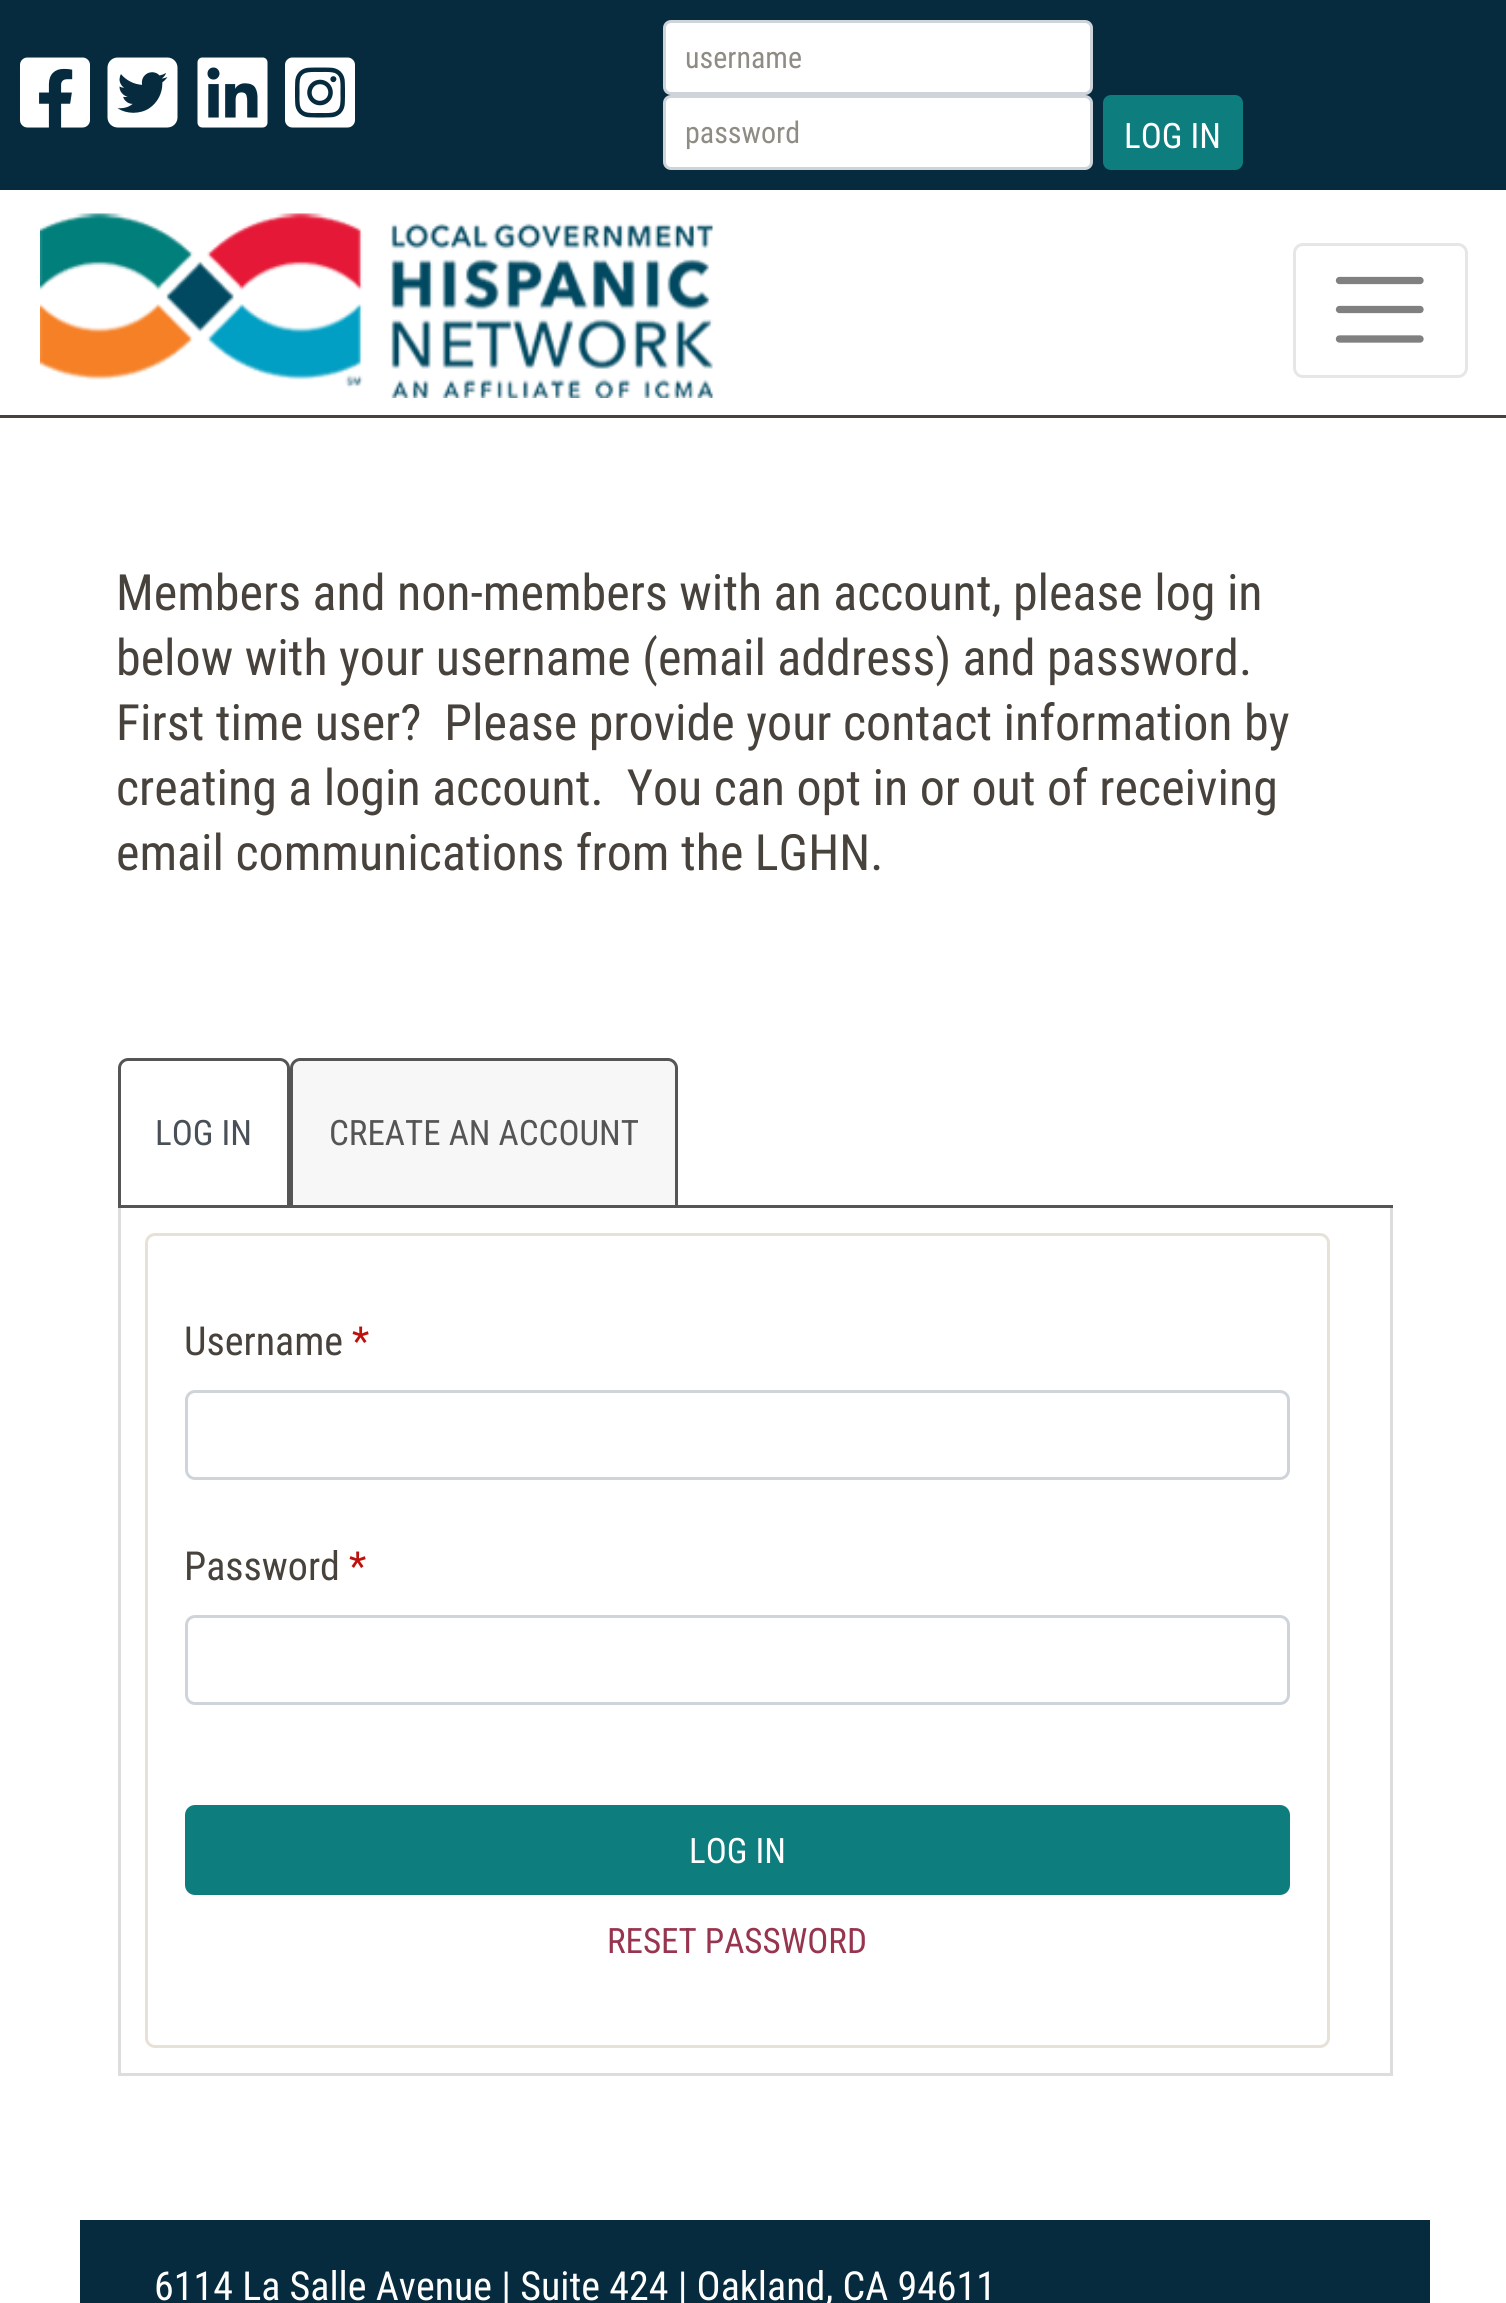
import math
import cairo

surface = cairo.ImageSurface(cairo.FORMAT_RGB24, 1506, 2303)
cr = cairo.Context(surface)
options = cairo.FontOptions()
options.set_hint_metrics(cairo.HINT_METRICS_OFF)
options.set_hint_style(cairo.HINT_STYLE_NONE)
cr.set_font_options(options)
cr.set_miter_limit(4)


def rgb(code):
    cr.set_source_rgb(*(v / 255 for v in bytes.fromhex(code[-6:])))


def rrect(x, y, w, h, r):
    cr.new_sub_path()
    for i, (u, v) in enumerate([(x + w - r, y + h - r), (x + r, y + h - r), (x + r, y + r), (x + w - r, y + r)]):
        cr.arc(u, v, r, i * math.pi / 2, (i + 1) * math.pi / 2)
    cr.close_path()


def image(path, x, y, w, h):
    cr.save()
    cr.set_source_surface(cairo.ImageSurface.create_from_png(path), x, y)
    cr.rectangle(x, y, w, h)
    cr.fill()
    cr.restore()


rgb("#ffffff")
cr.paint()
rgb("#072b3e")
cr.rectangle(0, 0, 1506, 190)
cr.fill()
image("img/1.png", 20, 57, 70, 71)
image("img/2.png", 107, 57, 71, 71)
image("img/3.png", 197, 57, 71, 71)
image("img/4.png", 285, 57, 70, 71)
rgb("#ffffff")
rrect(664.5, 21.5, 427, 72, 6.5)
cr.fill_preserve()
rgb("#ced4da")
cr.set_line_width(3)
cr.stroke()
rgb("#ffffff")
rrect(664.5, 96.5, 427, 72, 6.5)
cr.fill_preserve()
rgb("#ced4da")
cr.stroke()
rgb("#0e7d7e")
rrect(1104.5, 96.5, 137, 72, 6.5)
cr.fill_preserve()
cr.stroke()
rgb("#48423c")
cr.rectangle(0, 415, 1506, 3)
cr.fill()
image("img/5.png", 40, 213, 674, 185)
rrect(1294.5, 244.5, 172, 132, 8.5)
rgb("#e6e6e6")
cr.stroke()
cr.new_path()
cr.move_to(1339.5, 280.5)
cr.line_to(1420, 280.5)
cr.move_to(1339.5, 309.5)
cr.line_to(1420, 309.5)
cr.move_to(1339.5, 339)
cr.line_to(1420, 339)
rgb("#808080")
cr.set_line_width(7.3)
cr.set_line_cap(cairo.LINE_CAP_ROUND)
cr.stroke()
rgb("#555555")
cr.rectangle(678, 1205, 715, 3)
cr.fill()
cr.new_path()
cr.move_to(128, 1059.5)
cr.line_to(280, 1059.5)
cr.curve_to(284.5, 1059.5, 288.5, 1063.5, 288.5, 1068)
cr.line_to(288.5, 1206.5)
cr.line_to(119.5, 1206.5)
cr.line_to(119.5, 1068)
cr.curve_to(119.5, 1063.5, 123.5, 1059.5, 128, 1059.5)
cr.close_path()
cr.set_line_width(3)
cr.set_line_cap(cairo.LINE_CAP_BUTT)
cr.stroke()
rgb("#f7f7f7")
cr.new_path()
cr.move_to(300, 1059.5)
cr.line_to(668, 1059.5)
cr.curve_to(672.5, 1059.5, 676.5, 1063.5, 676.5, 1068)
cr.line_to(676.5, 1206.5)
cr.line_to(291.5, 1206.5)
cr.line_to(291.5, 1068)
cr.curve_to(291.5, 1063.5, 295.5, 1059.5, 300, 1059.5)
cr.close_path()
cr.fill_preserve()
rgb("#555555")
cr.stroke()
for x, y, w, h, color in [
    (1390, 1208, 3, 867, "#dddddd"),
    (118, 2073, 1275, 3, "#dddddd"),
    (118, 1208, 3, 867, "#dddddd"),
]:
    rgb(color)
    cr.rectangle(x, y, w, h)
    cr.fill()
rrect(146.5, 1234.5, 1182, 812, 8.5)
rgb("#e7e1d7")
cr.stroke()
rrect(186.5, 1391.5, 1102, 87, 8.5)
rgb("#ced4da")
cr.stroke()
rrect(186.5, 1616.5, 1102, 87, 8.5)
cr.stroke()
rgb("#0e7d7e")
rrect(186.5, 1806.5, 1102, 87, 8.5)
cr.fill_preserve()
cr.stroke()
rgb("#072b3e")
cr.rectangle(80, 2220, 1350, 83)
cr.fill()
cr.select_font_face("Roboto Condensed")
cr.set_font_size(30)
rgb("#8e8c84")
cr.move_to(685, 68)
cr.show_text("username")
cr.move_to(685, 143)
cr.show_text("password")
cr.set_font_size(35)
rgb("#ffffff")
cr.move_to(1124, 148)
cr.show_text("LOG IN")
cr.set_font_size(50)
rgb("#48423c")
for x, y, s in [
    (116, 610, "Members and non-members with an account, please log in"),
    (116, 675, "below with your username (email address) and password."),
    (116, 740, "First time user?  Please provide your contact information by"),
    (116, 805, "creating a login account.  You can opt in or out of receiving"),
    (116, 870, "email communications from the LGHN."),
]:
    cr.move_to(x, y)
    cr.show_text(s)
cr.set_font_size(35)
rgb("#495057")
cr.move_to(155, 1145)
cr.show_text("LOG IN")
rgb("#555555")
cr.move_to(329, 1145)
cr.show_text("CREATE AN ACCOUNT")
cr.set_font_size(40)
rgb("#48423c")
cr.move_to(184, 1355)
cr.show_text("Username")
rgb("#bf110b")
cr.move_to(352, 1355)
cr.show_text("*")
rgb("#48423c")
cr.move_to(184, 1580)
cr.show_text("Password")
rgb("#bf110b")
cr.move_to(349, 1580)
cr.show_text("*")
cr.set_font_size(35)
rgb("#ffffff")
cr.move_to(689, 1863)
cr.show_text("LOG IN")
rgb("#97344e")
cr.move_to(607, 1953)
cr.show_text("RESET PASSWORD")
cr.set_font_size(40)
rgb("#ffffff")
cr.move_to(154, 2300)
cr.show_text("6114 La Salle Avenue | Suite 424 | Oakland, CA 94611")
surface.write_to_png("page.png")
